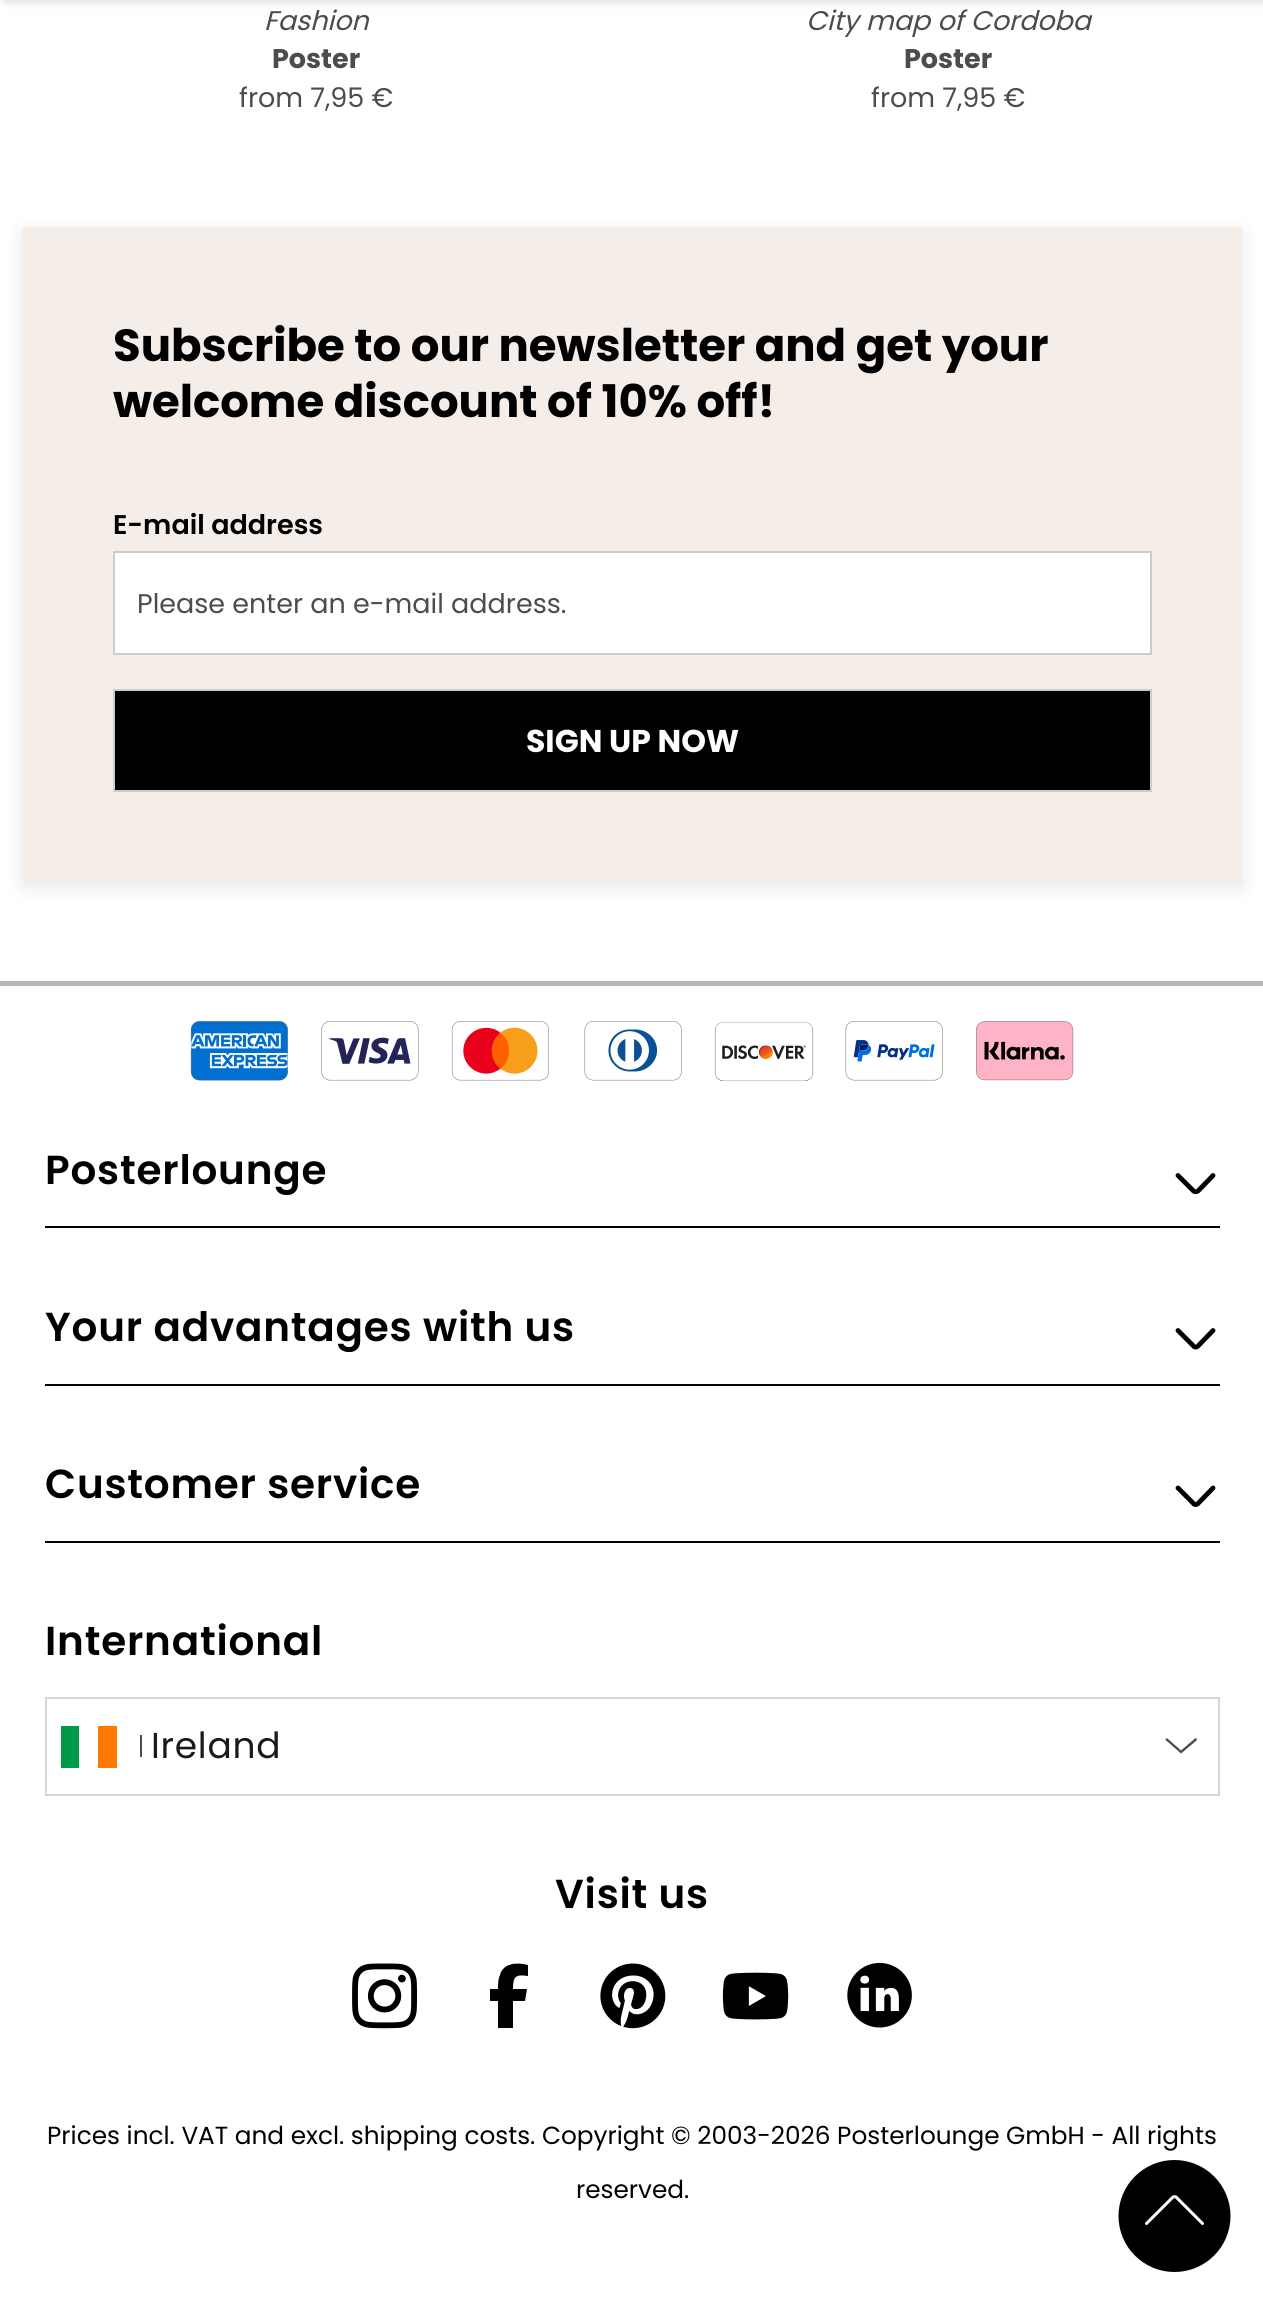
import math
import cairo

surface = cairo.ImageSurface(cairo.FORMAT_RGB24, 1263, 2305)
cr = cairo.Context(surface)
options = cairo.FontOptions()
options.set_hint_metrics(cairo.HINT_METRICS_OFF)
options.set_hint_style(cairo.HINT_STYLE_NONE)
cr.set_font_options(options)
cr.set_miter_limit(4)


def rgb(code):
    cr.set_source_rgb(*(v / 255 for v in bytes.fromhex(code[-6:])))


def tracked(x, y, s, letter, word):
    cr.move_to(x, y)
    for ch in s:
        cr.show_text(ch)
        cr.rel_move_to(letter + word * (ch == ' '), 0)


def rrect(x, y, w, h, r):
    cr.new_sub_path()
    for i, (u, v) in enumerate([(x + w - r, y + h - r), (x + r, y + h - r), (x + r, y + r), (x + w - r, y + r)]):
        cr.arc(u, v, r, i * math.pi / 2, (i + 1) * math.pi / 2)
    cr.close_path()


def soft_shadow(x, y, w, h, r, blur, alpha):
    cr.push_group_with_content(cairo.CONTENT_ALPHA)
    cr.set_operator(cairo.OPERATOR_SOURCE)
    for i in range(15, -16, -2):
        e = blur * i / 6
        if min(w, h) + 2 * e > 0:
            cr.set_source_rgba(0, 0, 0, alpha * math.erfc((i - 1) / 8.5) / 2)
            rrect(x - e, y - e, w + 2 * e, h + 2 * e, max(0, min(r + e + blur * .6, min(w, h) / 2 + e)))
            cr.fill()
    cr.mask(cr.pop_group())


def image(path, x, y, w, h):
    cr.save()
    cr.set_source_surface(cairo.ImageSurface.create_from_png(path), x, y)
    cr.rectangle(x, y, w, h)
    cr.fill()
    cr.restore()


rgb("#ffffff")
cr.paint()
rgb("#000000")
soft_shadow(5, -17, 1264, 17, 0, 5.5, 0.2)
soft_shadow(23, 232, 1219, 655, 0, 9, 0.1)
rgb("#f5eee8")
cr.rectangle(23, 227, 1219, 655)
cr.fill()
rgb("#ffffff")
cr.rectangle(114, 552, 1037, 102)
cr.fill_preserve()
rgb("#cccccc")
cr.stroke()
rgb("#000000")
cr.rectangle(114, 690, 1037, 101)
cr.fill_preserve()
rgb("#cccccc")
cr.stroke()
rgb("#b6b6b6")
cr.rectangle(0, 981, 1263, 5)
cr.fill()
image("img/1.png", 190, 1021, 98, 60)
image("img/2.png", 321, 1021, 98, 60)
image("img/3.png", 451, 1021, 98, 60)
image("img/4.png", 584, 1021, 98, 60)
image("img/5.png", 714, 1022, 100, 59)
image("img/6.png", 845, 1021, 98, 60)
image("img/7.png", 976, 1021, 98, 60)
rgb("#000000")
cr.rectangle(45, 1226, 1175, 2)
cr.fill()
cr.new_path()
cr.move_to(1178, 1175.5)
cr.line_to(1193.5, 1191)
cr.curve_to(1194.5, 1192, 1196.5, 1192, 1198, 1191)
cr.line_to(1213, 1175.5)
cr.set_line_width(4.8)
cr.set_line_cap(cairo.LINE_CAP_ROUND)
cr.stroke()
cr.rectangle(45, 1384, 1175, 2)
cr.fill()
cr.new_path()
cr.move_to(1178, 1330.5)
cr.line_to(1193.5, 1346)
cr.curve_to(1194.5, 1347.5, 1196.5, 1347.5, 1198, 1346)
cr.line_to(1213, 1330.5)
cr.stroke()
cr.rectangle(45, 1541, 1175, 2)
cr.fill()
cr.new_path()
cr.move_to(1178, 1488)
cr.line_to(1193.5, 1503.5)
cr.curve_to(1194.5, 1505, 1196.5, 1505, 1198, 1503.5)
cr.line_to(1213, 1488)
cr.stroke()
rgb("#4c4c4c")
cr.new_path()
cr.move_to(1181, 1753.5)
cr.line_to(1168.5, 1742.5)
cr.curve_to(1168.5, 1742.5, 1164, 1739.5, 1166, 1738.5)
cr.line_to(1167.5, 1738.5)
cr.line_to(1181, 1750.5)
cr.line_to(1195, 1738.5)
cr.curve_to(1196, 1737.5, 1197.5, 1739, 1196.5, 1740.5)
cr.close_path()
cr.fill()
cr.rectangle(46, 1698, 1173, 97)
rgb("#d5d5d5")
cr.set_line_width(2)
cr.set_line_cap(cairo.LINE_CAP_BUTT)
cr.stroke()
for x, y, w, h, color in [
    (61, 1726, 18, 42, "#009a49"),
    (98, 1726, 19, 42, "#ff7900"),
    (140, 1735, 2, 22, "#4c4c4c"),
]:
    rgb(color)
    cr.rectangle(x, y, w, h)
    cr.fill()
image("img/8.png", 352, 1963, 66, 66)
rgb("#000000")
cr.new_path()
cr.move_to(498, 2001)
cr.line_to(498, 2028)
cr.line_to(513, 2028)
cr.line_to(513, 2001)
cr.line_to(525, 2001)
cr.line_to(527, 1989)
cr.line_to(513, 1989)
cr.curve_to(513, 1977, 515, 1974, 528, 1976)
cr.line_to(528, 1965)
cr.curve_to(517, 1962, 503, 1963, 500, 1975)
cr.curve_to(498, 1979, 498, 1984, 498, 1989)
cr.line_to(490, 1989)
cr.line_to(490, 2001)
cr.close_path()
cr.fill()
image("img/9.png", 600, 1963, 66, 66)
image("img/10.png", 722, 1972, 67, 48)
image("img/11.png", 847, 1962, 65, 66)
cr.arc(1174.5, 2216, 56, 0, 2 * math.pi)
cr.fill()
cr.new_path()
cr.move_to(1202.5, 2223.5)
cr.line_to(1176, 2197)
cr.curve_to(1175, 2196.5, 1174, 2196.5, 1173, 2197)
cr.line_to(1146.5, 2223.5)
rgb("#ffffff")
cr.set_line_width(3)
cr.set_line_cap(cairo.LINE_CAP_ROUND)
cr.stroke()
cr.select_font_face("Poppins", cairo.FONT_SLANT_ITALIC)
cr.set_font_size(27)
rgb("#4c4c4c")
cr.move_to(264, 30)
cr.show_text("Fashion")
cr.select_font_face("Poppins", cairo.FONT_SLANT_NORMAL, cairo.FONT_WEIGHT_BOLD)
cr.move_to(272, 68)
cr.show_text("Poster")
cr.select_font_face("Poppins")
cr.move_to(239, 107)
cr.show_text("from 7,95 €")
cr.select_font_face("Poppins", cairo.FONT_SLANT_ITALIC)
cr.move_to(806, 30)
cr.show_text("City map of Cordoba")
cr.select_font_face("Poppins", cairo.FONT_SLANT_NORMAL, cairo.FONT_WEIGHT_BOLD)
cr.move_to(904, 68)
cr.show_text("Poster")
cr.select_font_face("Poppins")
cr.move_to(871, 107)
cr.show_text("from 7,95 €")
cr.select_font_face("Poppins", cairo.FONT_SLANT_NORMAL, cairo.FONT_WEIGHT_BOLD)
cr.set_font_size(45)
rgb("#000000")
cr.move_to(113, 361)
cr.show_text("Subscribe to our newsletter and get your")
cr.move_to(113, 417)
cr.show_text("welcome discount of 10% off!")
cr.select_font_face("Poppins SemiBold")
cr.set_font_size(27)
cr.move_to(113, 534)
cr.show_text("E-mail address")
cr.select_font_face("Poppins")
rgb("#4c4c4c")
cr.move_to(137, 613)
cr.show_text("Please enter an e-mail address.")
cr.select_font_face("Poppins", cairo.FONT_SLANT_NORMAL, cairo.FONT_WEIGHT_BOLD)
cr.set_font_size(31.5)
rgb("#ffffff")
cr.move_to(526, 752)
cr.show_text("SIGN UP NOW")
cr.select_font_face("Poppins SemiBold")
cr.set_font_size(40.5)
rgb("#000000")
for x, y, s in [
    (45, 1184, "Posterlounge"),
    (45, 1341, "Your advantages with us"),
    (45, 1498, "Customer service"),
    (45, 1655, "International"),
]:
    tracked(x, y, s, 0.8, 0)
cr.select_font_face("Poppins")
cr.set_font_size(36)
rgb("#1a1a1a")
tracked(151, 1758, "Ireland", 0.75, 0)
cr.select_font_face("Poppins SemiBold")
cr.set_font_size(40.5)
rgb("#000000")
tracked(555, 1908, "Visit us", 0.8, 0)
cr.select_font_face("Poppins")
cr.set_font_size(24.75)
cr.move_to(47, 2144)
cr.show_text("Prices incl. VAT and excl. shipping costs. Copyright © 2003-2026 Posterlounge GmbH - All rights")
cr.move_to(576, 2198)
cr.show_text("reserved.")
surface.write_to_png("page.png")
